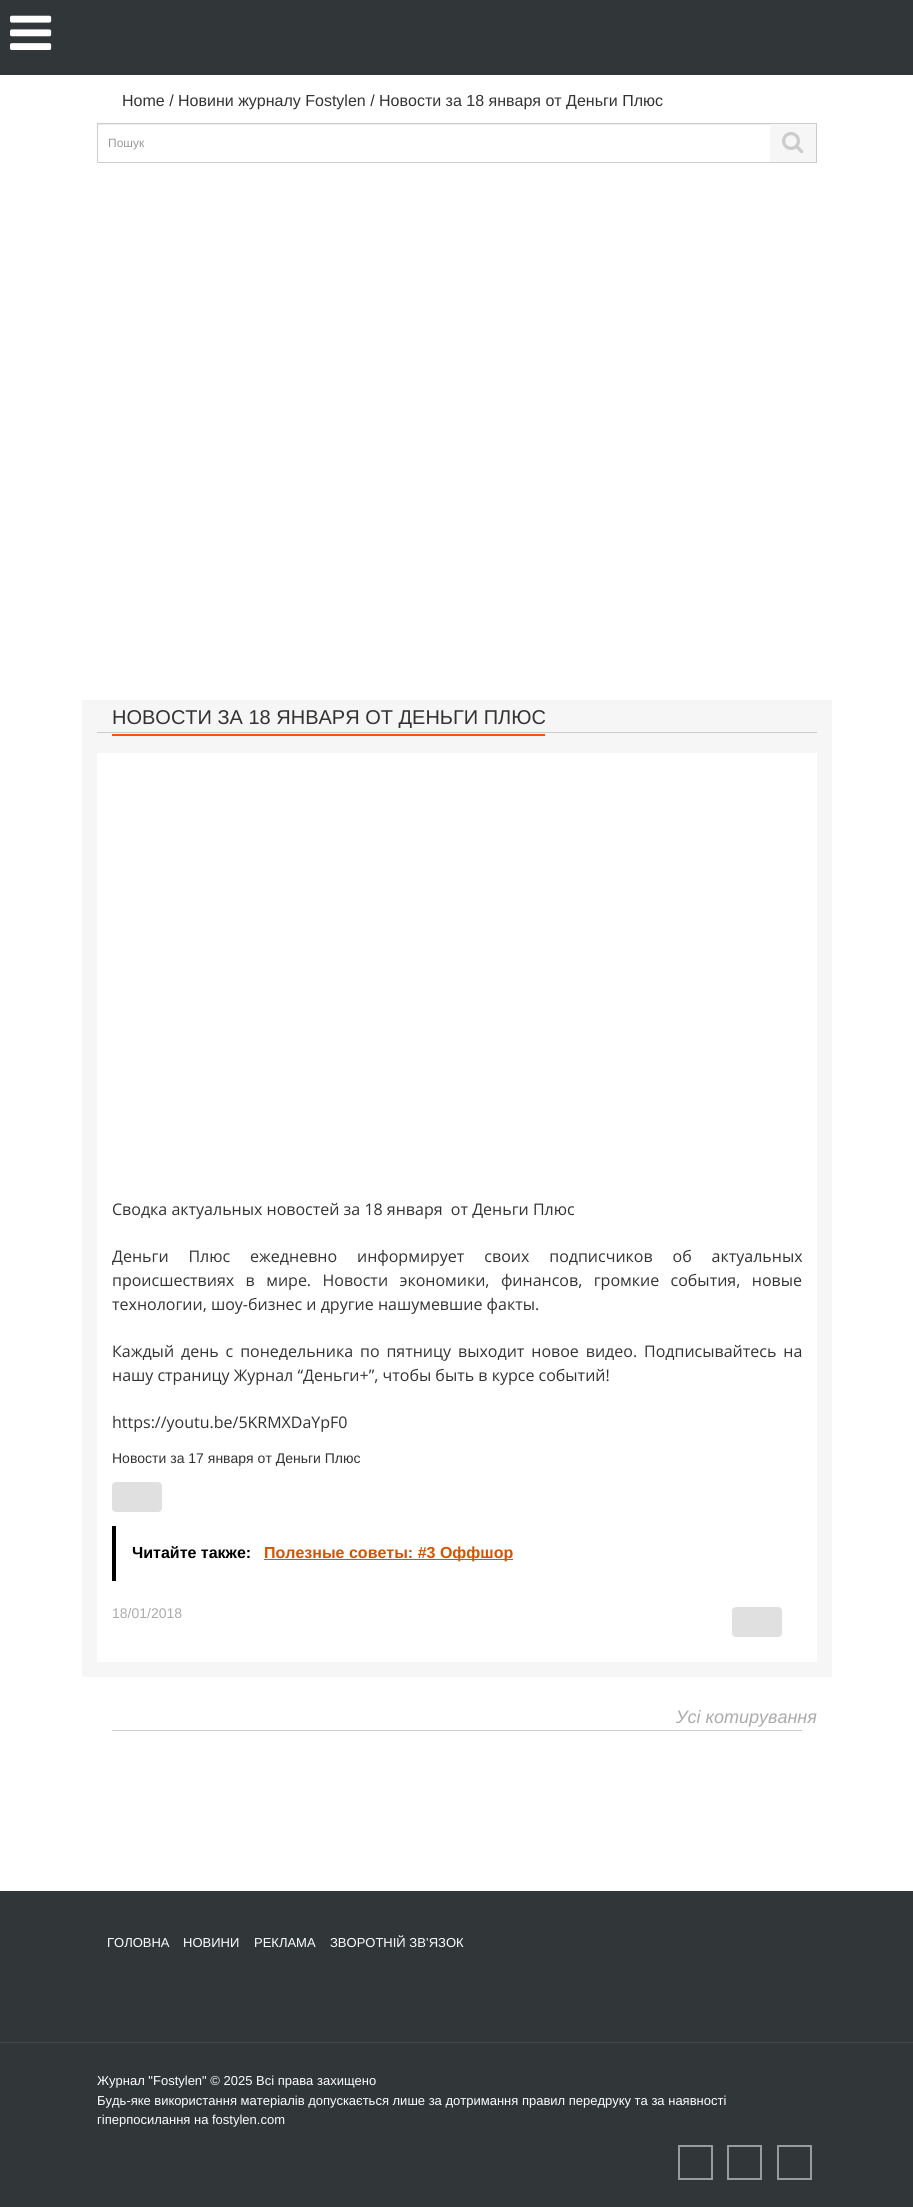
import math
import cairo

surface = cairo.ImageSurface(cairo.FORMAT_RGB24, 913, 2207)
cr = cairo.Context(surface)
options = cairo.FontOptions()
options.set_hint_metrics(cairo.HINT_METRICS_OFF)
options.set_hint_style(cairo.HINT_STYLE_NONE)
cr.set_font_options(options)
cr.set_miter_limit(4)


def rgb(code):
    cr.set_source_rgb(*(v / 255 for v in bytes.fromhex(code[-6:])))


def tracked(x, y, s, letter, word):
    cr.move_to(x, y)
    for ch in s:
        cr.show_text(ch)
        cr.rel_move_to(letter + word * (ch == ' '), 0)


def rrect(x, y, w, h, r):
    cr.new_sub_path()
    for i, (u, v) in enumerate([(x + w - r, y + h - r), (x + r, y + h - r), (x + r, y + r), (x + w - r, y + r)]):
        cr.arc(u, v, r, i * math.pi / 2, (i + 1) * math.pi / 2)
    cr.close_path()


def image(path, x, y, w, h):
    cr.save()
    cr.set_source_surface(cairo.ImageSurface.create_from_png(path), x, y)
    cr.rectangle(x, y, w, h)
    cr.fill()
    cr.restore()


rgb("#ffffff")
cr.paint()
rgb("#313639")
cr.rectangle(0, 0, 913, 75)
cr.fill()
image("img/1.png", 10, 15, 42, 35)
rgb("#ececec")
cr.rectangle(98, 124, 672, 1)
cr.fill()
cr.rectangle(97.5, 123.5, 673, 39)
rgb("#cccccc")
cr.set_line_width(1)
cr.stroke()
for x, y, w, h, color in [
    (770, 124, 46, 38, "#f6f6f6"),
    (770, 123, 47, 1, "#cccccc"),
    (816, 123, 1, 40, "#cccccc"),
    (770, 162, 47, 1, "#cccccc"),
]:
    rgb(color)
    cr.rectangle(x, y, w, h)
    cr.fill()
image("img/2.png", 782, 132, 22, 22)
for x, y, w, h, color in [
    (82, 700, 750, 977, "#f6f6f6"),
    (97, 732, 720, 1, "#cccccc"),
    (112, 734, 433, 2, "#ff4f00"),
    (97, 753, 720, 909, "#ffffff"),
]:
    rgb(color)
    cr.rectangle(x, y, w, h)
    cr.fill()
rgb("#e0e0e0")
rrect(112, 1482, 50, 30, 4)
cr.fill()
rgb("#000000")
cr.rectangle(112, 1526, 4, 55)
cr.fill()
rgb("#d35400")
cr.rectangle(264, 1559, 249, 1)
cr.fill()
rgb("#e0e0e0")
rrect(732, 1607, 50, 30, 4)
cr.fill()
for x, y, w, h, color in [
    (112, 1730, 690, 1, "#cccccc"),
    (0, 1891, 913, 316, "#313639"),
    (0, 2042, 913, 1, "#424749"),
]:
    rgb(color)
    cr.rectangle(x, y, w, h)
    cr.fill()
cr.rectangle(679, 2146, 33, 33)
rgb("#989b9c")
cr.set_line_width(2)
cr.stroke()
cr.rectangle(728, 2146, 33, 33)
cr.stroke()
cr.rectangle(778, 2146, 33, 33)
cr.stroke()
cr.select_font_face("Liberation Sans")
cr.set_font_size(16)
rgb("#333333")
cr.move_to(122, 106)
cr.show_text("Home / Новини журналу Fostylen / Новости за 18 января от Деньги Плюс")
cr.set_font_size(12)
rgb("#999999")
cr.move_to(108, 147)
cr.show_text("Пошук")
cr.set_font_size(20)
rgb("#333333")
cr.move_to(112, 724)
cr.show_text("НОВОСТИ ЗА 18 ЯНВАРЯ ОТ ДЕНЬГИ ПЛЮС")
cr.select_font_face("Open Sans")
cr.set_font_size(16)
cr.move_to(112, 1215)
cr.show_text("Сводка актуальных новостей за 18 января  от Деньги Плюс")
tracked(112, 1262, "Деньги Плюс ежедневно информирует своих подписчиков об актуальных", 0, 15.75)
tracked(112, 1286, "происшествиях в мире. Новости экономики, финансов, громкие события, новые", 0, 7.25)
cr.move_to(112, 1310)
cr.show_text("технологии, шоу-бизнес и другие нашумевшие факты.")
tracked(112, 1357, "Каждый день с понедельника по пятницу выходит новое видео. Подписывайтесь на", 0, 2.75)
cr.move_to(112, 1381)
cr.show_text("нашу страницу Журнал “Деньги+”, чтобы быть в курсе событий!")
cr.move_to(112, 1428)
cr.show_text("https://youtu.be/5KRMXDaYpF0")
cr.select_font_face("Liberation Sans")
cr.set_font_size(14)
cr.move_to(112, 1463)
cr.show_text("Новости за 17 января от Деньги Плюс")
cr.select_font_face("Liberation Sans", cairo.FONT_SLANT_NORMAL, cairo.FONT_WEIGHT_BOLD)
cr.set_font_size(16)
rgb("#000000")
cr.move_to(132, 1558)
cr.show_text("Читайте также:")
rgb("#d35400")
cr.move_to(264, 1558)
cr.show_text("Полезные советы: #3 Оффшор")
cr.select_font_face("Liberation Sans")
cr.set_font_size(14)
rgb("#ababab")
cr.move_to(112, 1618)
cr.show_text("18/01/2018")
cr.select_font_face("Liberation Sans", cairo.FONT_SLANT_ITALIC)
cr.set_font_size(18)
cr.move_to(676, 1723)
cr.show_text("Усі котирування")
cr.select_font_face("Liberation Sans")
cr.set_font_size(13)
rgb("#ffffff")
for x, y, s in [
    (107, 1947, "ГОЛОВНА"),
    (183, 1947, "НОВИНИ"),
    (254, 1947, "РЕКЛАМА"),
    (330, 1947, "ЗВОРОТНІЙ ЗВ’ЯЗОК"),
    (97, 2085, "Журнал \"Fostylen\" © 2025 Всі права захищено"),
    (97, 2105, "Будь-яке використання матеріалів допускається лише за дотримання правил передруку та за наявності"),
    (97, 2124, "гіперпосилання на fostylen.com"),
]:
    cr.move_to(x, y)
    cr.show_text(s)
surface.write_to_png("page.png")
